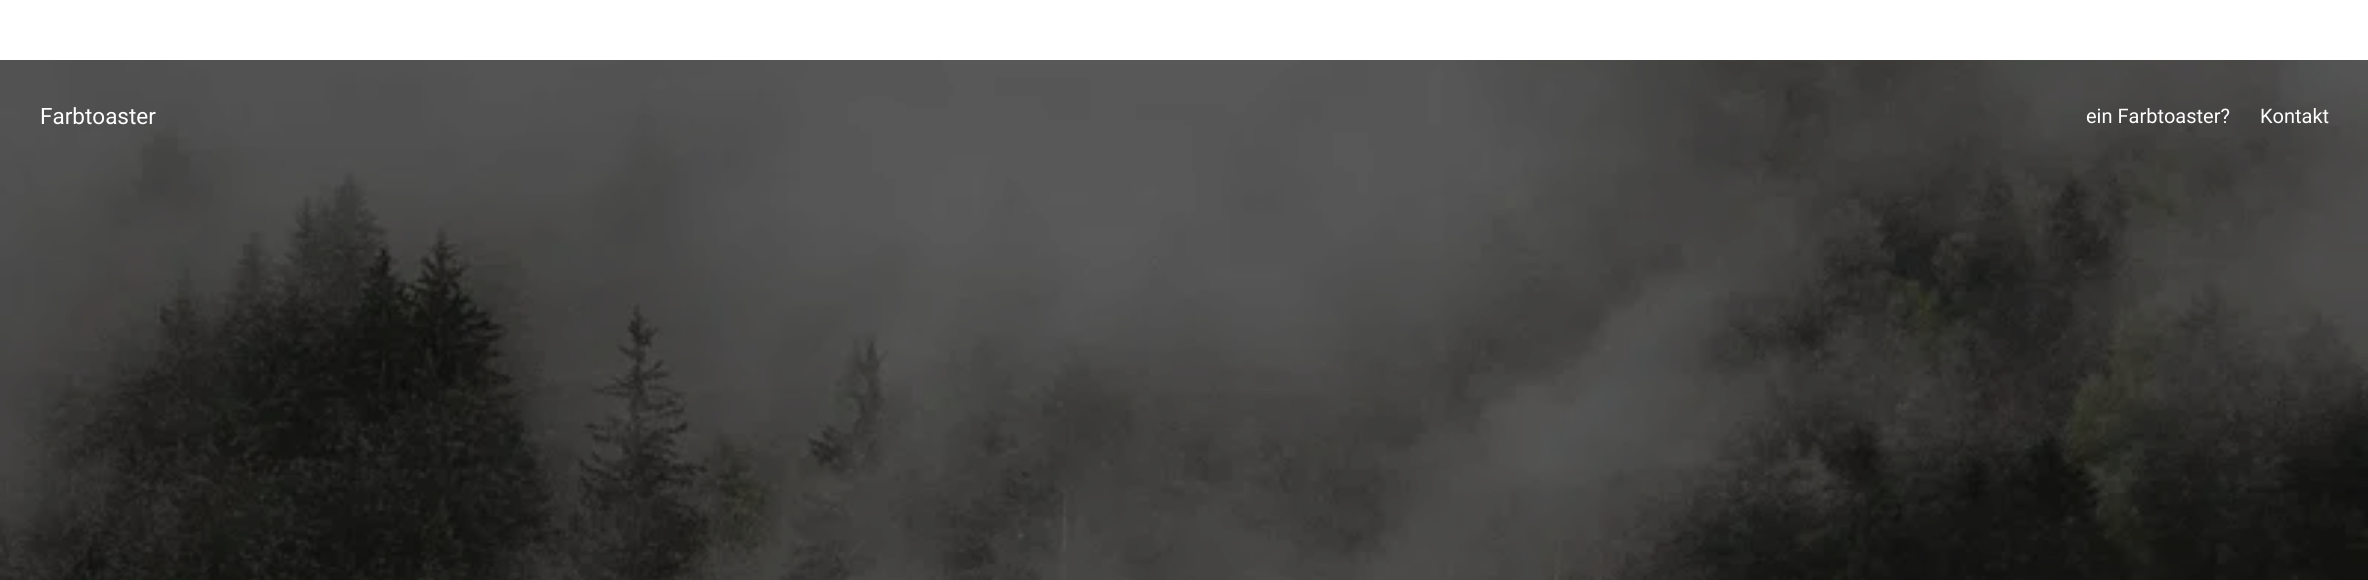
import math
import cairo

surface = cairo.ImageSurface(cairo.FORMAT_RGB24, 2368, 580)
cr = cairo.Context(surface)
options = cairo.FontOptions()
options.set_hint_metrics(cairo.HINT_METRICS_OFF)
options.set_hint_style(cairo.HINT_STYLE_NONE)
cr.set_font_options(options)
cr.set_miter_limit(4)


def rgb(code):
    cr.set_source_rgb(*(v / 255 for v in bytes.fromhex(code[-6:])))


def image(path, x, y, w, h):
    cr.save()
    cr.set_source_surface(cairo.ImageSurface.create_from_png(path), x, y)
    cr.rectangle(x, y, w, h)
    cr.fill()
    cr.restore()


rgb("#ffffff")
cr.paint()
image("img/1.png", 0, 60, 2368, 520)
cr.select_font_face("Roboto")
cr.set_font_size(22.5)
rgb("#ffffff")
cr.move_to(40, 124)
cr.show_text("Farbtoaster")
cr.set_font_size(20)
cr.move_to(2086, 123)
cr.show_text("ein Farbtoaster?")
cr.move_to(2260, 123)
cr.show_text("Kontakt")
surface.write_to_png("page.png")
